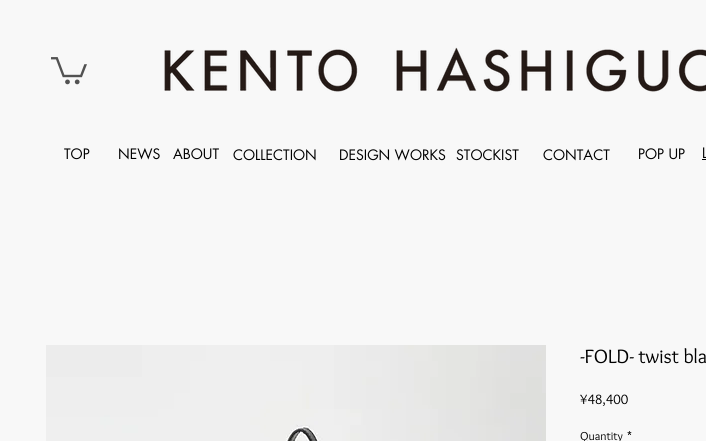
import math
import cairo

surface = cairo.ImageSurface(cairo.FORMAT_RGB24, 706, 441)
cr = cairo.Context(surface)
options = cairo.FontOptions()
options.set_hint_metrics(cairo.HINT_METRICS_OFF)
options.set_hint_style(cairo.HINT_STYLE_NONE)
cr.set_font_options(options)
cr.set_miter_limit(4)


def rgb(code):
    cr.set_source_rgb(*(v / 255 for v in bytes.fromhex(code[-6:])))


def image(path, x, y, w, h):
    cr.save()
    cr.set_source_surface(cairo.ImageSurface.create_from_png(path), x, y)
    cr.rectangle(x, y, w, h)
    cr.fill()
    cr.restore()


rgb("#f8f8f8")
cr.paint()
image("img/1.png", 51, 57, 36, 28)
image("img/2.png", 164, 47, 542, 45)
rgb("#000000")
cr.rectangle(702, 159, 4, 1)
cr.fill()
image("img/3.png", 46, 345, 500, 96)
cr.select_font_face("futura")
cr.set_font_size(14)
for x, y, s in [
    (64, 159, "TOP"),
    (118, 159, "NEWS"),
    (173, 159, "ABOUT"),
    (233, 160, "COLLECTION"),
    (339, 160, "DESIGN WORKS"),
    (456, 160, "STOCKIST"),
    (543, 160, "CONTACT"),
    (638, 159, "POP UP"),
    (702, 158, "L"),
]:
    cr.move_to(x, y)
    cr.show_text(s)
cr.select_font_face("Overlock")
cr.set_font_size(20)
cr.move_to(580, 363)
cr.show_text("-FOLD- twist bla")
cr.set_font_size(14)
cr.move_to(580, 404)
cr.show_text("¥48,400")
cr.set_font_size(12)
cr.move_to(580, 440)
cr.show_text("Quantity")
cr.move_to(627, 440)
cr.show_text("*")
surface.write_to_png("page.png")
